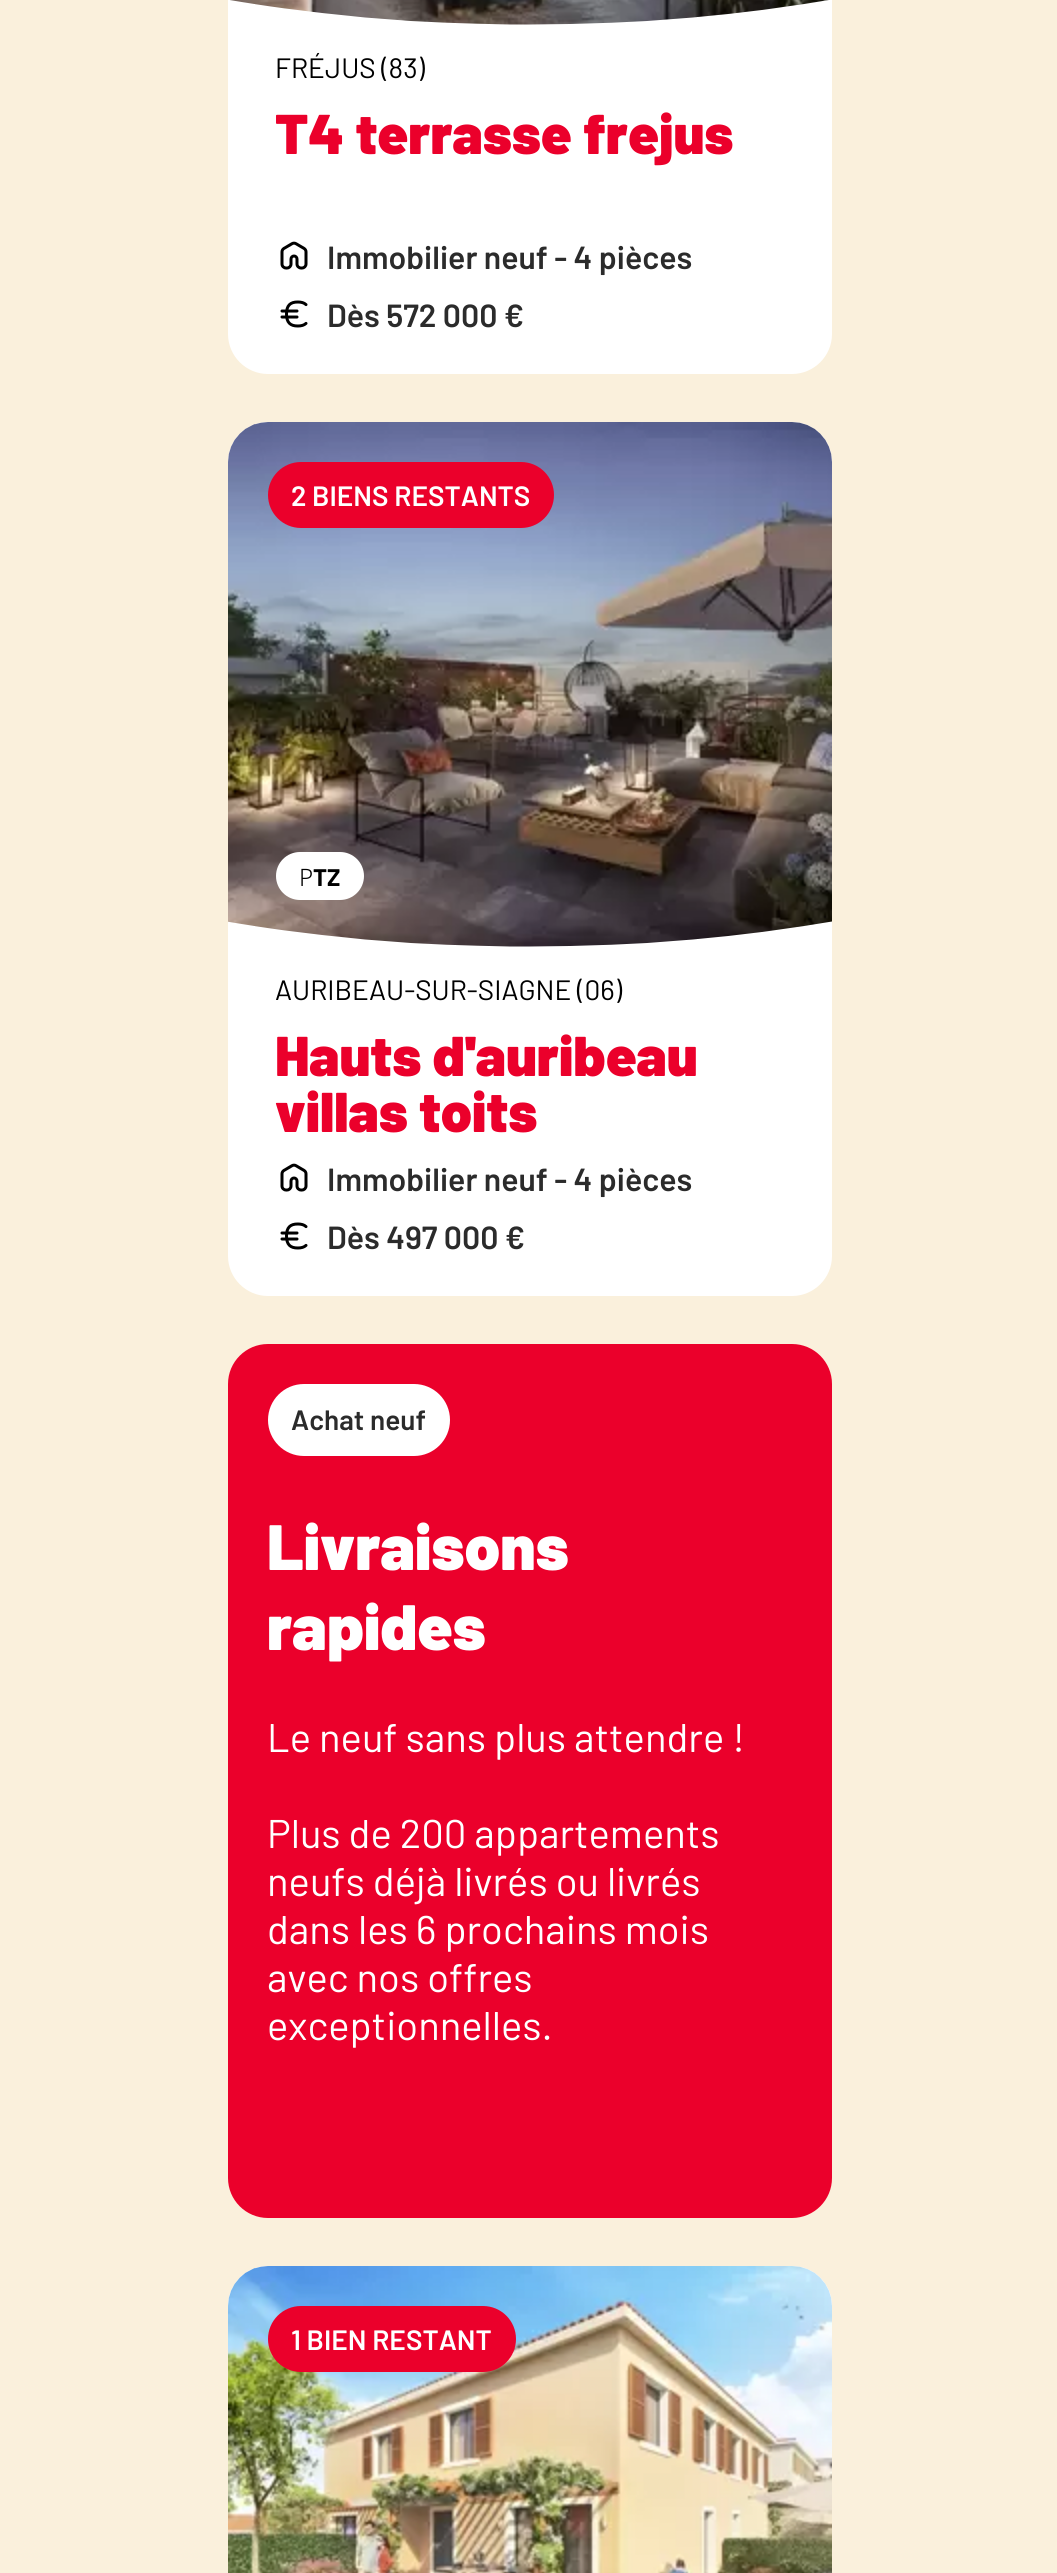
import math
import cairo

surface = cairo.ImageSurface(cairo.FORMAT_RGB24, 1057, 2573)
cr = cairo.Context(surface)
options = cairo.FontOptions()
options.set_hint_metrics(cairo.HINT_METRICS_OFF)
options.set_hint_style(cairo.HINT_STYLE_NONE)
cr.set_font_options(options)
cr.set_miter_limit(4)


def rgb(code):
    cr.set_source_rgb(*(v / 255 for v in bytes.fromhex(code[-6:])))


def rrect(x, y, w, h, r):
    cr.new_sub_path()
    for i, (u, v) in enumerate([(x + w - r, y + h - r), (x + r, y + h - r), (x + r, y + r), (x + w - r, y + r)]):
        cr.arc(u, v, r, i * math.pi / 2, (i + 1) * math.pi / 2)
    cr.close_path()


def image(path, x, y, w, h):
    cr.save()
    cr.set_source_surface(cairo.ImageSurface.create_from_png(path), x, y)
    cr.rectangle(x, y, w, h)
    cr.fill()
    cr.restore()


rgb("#faf0dc")
cr.paint()
rgb("#ffffff")
cr.rectangle(228, 0, 604, 26)
cr.fill()
image("img/1.png", 230, 0, 599, 25)
cr.new_path()
cr.move_to(228, 26)
cr.line_to(832, 26)
cr.line_to(832, 334)
cr.curve_to(832, 356, 814, 374, 792, 374)
cr.line_to(268, 374)
cr.curve_to(246, 374, 228, 356, 228, 334)
cr.close_path()
cr.fill()
image("img/2.png", 280, 241, 28, 29)
image("img/3.png", 280, 300, 28, 28)
cr.new_path()
cr.move_to(268, 422)
cr.line_to(792, 422)
cr.curve_to(814, 422, 832, 440, 832, 462)
cr.line_to(832, 948)
cr.line_to(228, 948)
cr.line_to(228, 462)
cr.curve_to(228, 440, 246, 422, 268, 422)
cr.close_path()
cr.fill()
image("img/4.png", 228, 422, 604, 525)
rgb("#eb002b")
rrect(268, 462, 286, 66, 33)
cr.fill()
rgb("#ffffff")
rrect(276, 852, 88, 48, 24)
cr.fill()
cr.new_path()
cr.move_to(228, 948)
cr.line_to(832, 948)
cr.line_to(832, 1256)
cr.curve_to(832, 1278, 814, 1296, 792, 1296)
cr.line_to(268, 1296)
cr.curve_to(246, 1296, 228, 1278, 228, 1256)
cr.close_path()
cr.fill()
image("img/2.png", 280, 1163, 28, 29)
image("img/3.png", 280, 1222, 28, 28)
rgb("#eb002b")
rrect(228, 1344, 604, 874, 40)
cr.fill()
rgb("#ffffff")
rrect(268, 1384, 182, 72, 36)
cr.fill()
cr.new_path()
cr.move_to(268, 2266)
cr.line_to(792, 2266)
cr.curve_to(814, 2266, 832, 2284, 832, 2306)
cr.line_to(832, 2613)
cr.line_to(228, 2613)
cr.line_to(228, 2306)
cr.curve_to(228, 2284, 246, 2266, 268, 2266)
cr.close_path()
cr.fill()
image("img/5.png", 228, 2266, 604, 307)
rgb("#eb002b")
rrect(268, 2306, 248, 66, 33)
cr.fill()
cr.select_font_face("Barlow")
cr.set_font_size(28)
rgb("#000000")
cr.move_to(275, 78)
cr.show_text("FRÉJUS (83)")
cr.select_font_face("Barlow Black")
cr.set_font_size(56)
rgb("#eb002b")
cr.move_to(275, 154)
cr.show_text("T4 terrasse frejus")
cr.select_font_face("Barlow SemiBold")
cr.set_font_size(32)
rgb("#2b2b2b")
cr.move_to(327, 269)
cr.show_text("Immobilier neuf - 4 pièces")
cr.move_to(327, 327)
cr.show_text("Dès 572 000 €")
cr.set_font_size(28)
rgb("#ffffff")
cr.move_to(291, 506)
cr.show_text("2 BIENS RESTANTS")
cr.select_font_face("Noto Sans Light")
cr.set_font_size(24)
rgb("#000000")
cr.move_to(299, 886)
cr.show_text("P")
cr.select_font_face("Barlow", cairo.FONT_SLANT_NORMAL, cairo.FONT_WEIGHT_BOLD)
cr.move_to(313, 886)
cr.show_text("TZ")
cr.select_font_face("Barlow")
cr.set_font_size(28)
cr.move_to(275, 1000)
cr.show_text("AURIBEAU-SUR-SIAGNE (06)")
cr.select_font_face("Barlow Black")
cr.set_font_size(56)
rgb("#eb002b")
cr.move_to(275, 1076)
cr.show_text("Hauts d'auribeau")
cr.move_to(275, 1132)
cr.show_text("villas toits")
cr.select_font_face("Barlow SemiBold")
cr.set_font_size(32)
rgb("#2b2b2b")
cr.move_to(327, 1191)
cr.show_text("Immobilier neuf - 4 pièces")
cr.move_to(327, 1249)
cr.show_text("Dès 497 000 €")
cr.set_font_size(28)
cr.move_to(291, 1430)
cr.show_text("Achat neuf")
cr.select_font_face("Barlow Black")
cr.set_font_size(64)
rgb("#ffffff")
cr.move_to(267, 1570)
cr.show_text("Livraisons")
cr.move_to(267, 1650)
cr.show_text("rapides")
cr.select_font_face("Barlow")
cr.set_font_size(40)
for x, y, s in [
    (267, 1752, "Le neuf sans plus attendre !"),
    (267, 1848, "Plus de 200 appartements"),
    (267, 1896, "neufs déjà livrés ou livrés"),
    (267, 1944, "dans les 6 prochains mois"),
    (267, 1992, "avec nos offres"),
    (267, 2040, "exceptionnelles."),
]:
    cr.move_to(x, y)
    cr.show_text(s)
cr.select_font_face("Barlow SemiBold")
cr.set_font_size(28)
cr.move_to(291, 2350)
cr.show_text("1 BIEN RESTANT")
surface.write_to_png("page.png")
